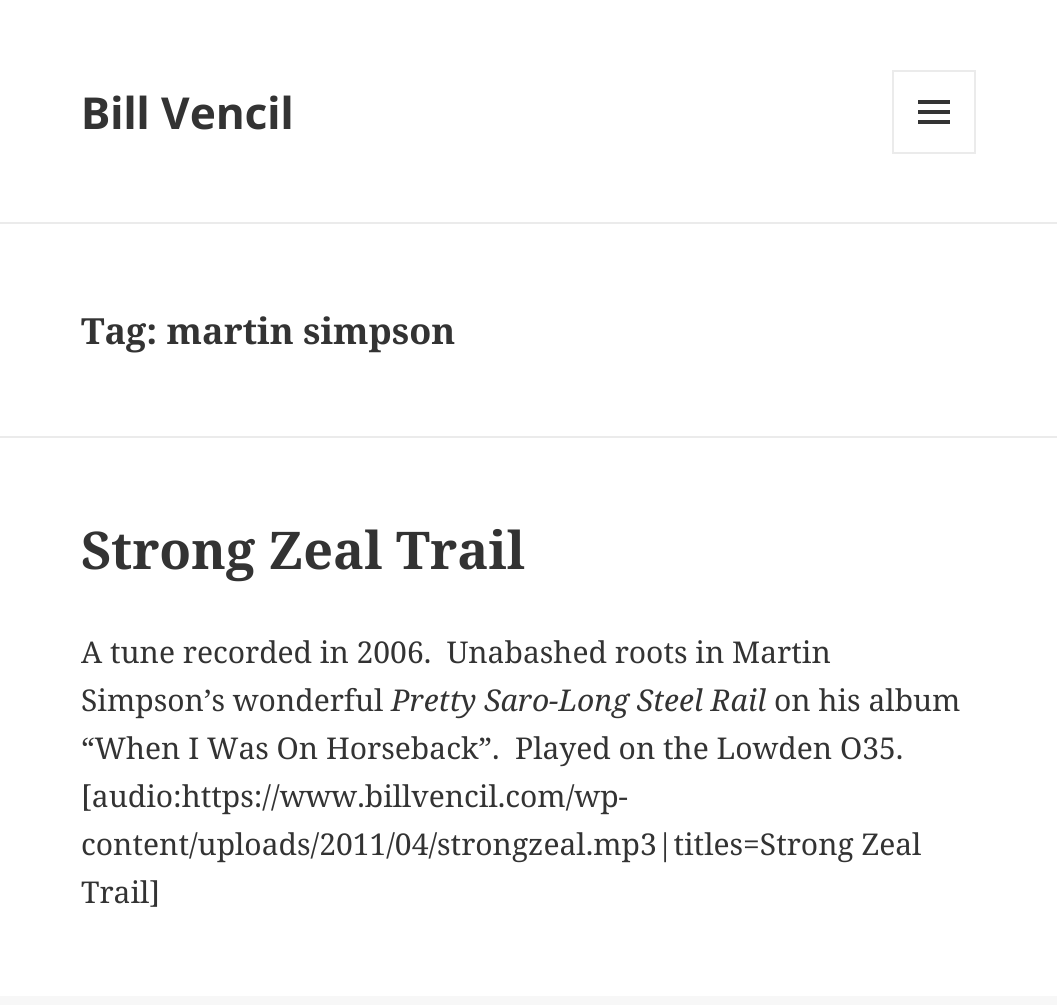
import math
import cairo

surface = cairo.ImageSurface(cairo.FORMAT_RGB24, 1057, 1005)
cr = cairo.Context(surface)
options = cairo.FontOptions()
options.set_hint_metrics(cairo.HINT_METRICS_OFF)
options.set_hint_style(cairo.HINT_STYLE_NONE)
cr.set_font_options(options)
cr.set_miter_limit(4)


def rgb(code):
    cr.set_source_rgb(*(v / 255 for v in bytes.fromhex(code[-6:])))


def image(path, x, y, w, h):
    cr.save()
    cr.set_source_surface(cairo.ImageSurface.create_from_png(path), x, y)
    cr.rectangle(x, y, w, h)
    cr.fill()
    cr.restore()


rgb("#ffffff")
cr.paint()
rgb("#ebebeb")
cr.rectangle(0, 222, 1057, 2)
cr.fill()
cr.rectangle(893, 71, 82, 82)
cr.stroke()
image("img/1.png", 918, 100, 32, 24)
cr.rectangle(0, 436, 1057, 2)
cr.fill()
rgb("#f7f7f7")
cr.rectangle(0, 996, 1057, 9)
cr.fill()
cr.select_font_face("Noto Sans", cairo.FONT_SLANT_NORMAL, cairo.FONT_WEIGHT_BOLD)
cr.set_font_size(44)
rgb("#333333")
cr.move_to(81, 129)
cr.show_text("Bill Vencil")
cr.select_font_face("Noto Serif", cairo.FONT_SLANT_NORMAL, cairo.FONT_WEIGHT_BOLD)
cr.set_font_size(36)
cr.move_to(81, 344)
cr.show_text("Tag: martin simpson")
cr.set_font_size(52)
cr.move_to(81, 569)
cr.show_text("Strong Zeal Trail")
cr.select_font_face("Noto Serif")
cr.set_font_size(30)
cr.move_to(81, 663)
cr.show_text("A tune recorded in 2006.  Unabashed roots in Martin")
cr.move_to(81, 711)
cr.show_text("Simpson’s wonderful")
cr.select_font_face("Noto Serif", cairo.FONT_SLANT_ITALIC)
cr.move_to(391, 711)
cr.show_text("Pretty Saro-Long Steel Rail")
cr.select_font_face("Noto Serif")
for x, y, s in [
    (774, 711, "on his album"),
    (81, 759, "“When I Was On Horseback”.  Played on the Lowden O35."),
    (81, 807, "[audio:https://www.billvencil.com/wp-"),
    (81, 855, "content/uploads/2011/04/strongzeal.mp3|titles=Strong Zeal"),
    (81, 903, "Trail]"),
]:
    cr.move_to(x, y)
    cr.show_text(s)
surface.write_to_png("page.png")
